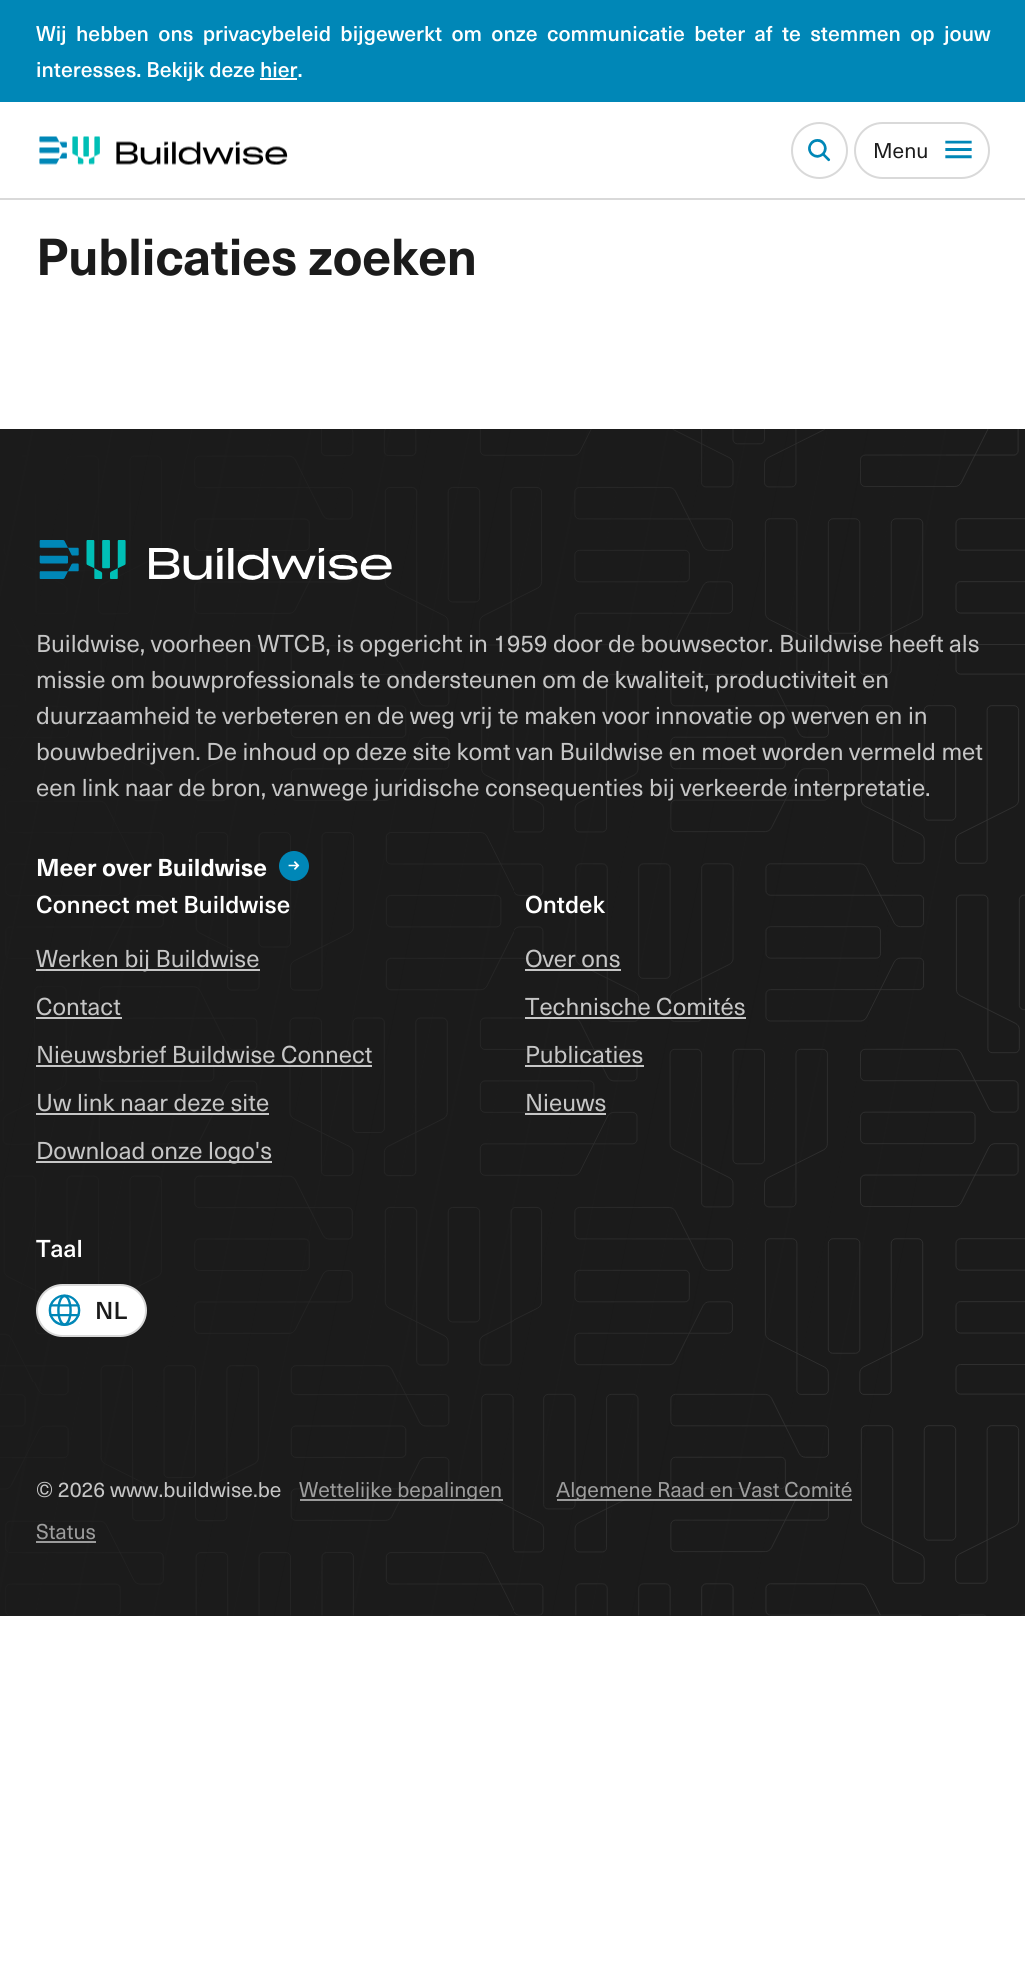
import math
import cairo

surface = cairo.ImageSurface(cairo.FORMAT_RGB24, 1025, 1988)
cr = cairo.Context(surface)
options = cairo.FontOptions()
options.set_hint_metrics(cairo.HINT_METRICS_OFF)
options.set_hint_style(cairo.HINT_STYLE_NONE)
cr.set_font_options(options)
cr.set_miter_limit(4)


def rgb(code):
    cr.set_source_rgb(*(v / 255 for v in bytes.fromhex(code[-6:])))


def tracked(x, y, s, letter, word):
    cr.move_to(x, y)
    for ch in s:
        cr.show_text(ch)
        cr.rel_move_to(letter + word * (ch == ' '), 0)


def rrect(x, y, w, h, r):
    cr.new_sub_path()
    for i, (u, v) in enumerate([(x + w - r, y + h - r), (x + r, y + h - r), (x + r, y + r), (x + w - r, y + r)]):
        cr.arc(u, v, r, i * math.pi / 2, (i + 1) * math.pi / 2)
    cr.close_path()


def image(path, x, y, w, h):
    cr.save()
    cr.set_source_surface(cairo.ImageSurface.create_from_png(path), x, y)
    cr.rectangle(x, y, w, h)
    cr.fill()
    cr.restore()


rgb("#ffffff")
cr.paint()
for x, y, w, h, color in [
    (0, 198, 1025, 2, "#d9d9d9"),
    (0, 0, 1025, 102, "#0087b7"),
    (260, 78, 37, 2, "#ffffff"),
]:
    rgb(color)
    cr.rectangle(x, y, w, h)
    cr.fill()
image("img/1.png", 39, 136, 249, 29)
cr.arc(819.5, 150.5, 27.5, 0, 2 * math.pi)
rgb("#d9d9d9")
cr.stroke()
image("img/2.png", 808, 139, 23, 23)
rrect(855, 123, 134, 55, 27.5)
cr.stroke()
image("img/3.png", 945, 140, 27, 19)
rgb("#1b1b1b")
cr.rectangle(0, 429, 1025, 1187)
cr.fill()
image("img/4.png", 0, 429, 1025, 1187)
gradient = cairo.LinearGradient(-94, 901, 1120, 1143)
gradient.add_color_stop_rgba(0.01, 0.106, 0.106, 0.106, 1)
gradient.add_color_stop_rgba(0.86, 0.106, 0.106, 0.106, 0)
cr.set_source(gradient)
cr.rectangle(0, 429, 946, 1187)
cr.fill()
image("img/5.png", 39, 540, 353, 40)
rgb("#0087b7")
cr.arc(294, 866, 15, 0, 2 * math.pi)
cr.fill()
image("img/6.png", 288, 861, 12, 9)
cr.set_source_rgba(1, 1, 1, 0.75)
cr.rectangle(36, 969, 224, 2)
cr.fill()
cr.rectangle(36, 1017, 86, 2)
cr.fill()
cr.rectangle(36, 1065, 336, 2)
cr.fill()
cr.rectangle(36, 1113, 233, 2)
cr.fill()
rgb("#c6c6c6")
cr.rectangle(36, 1161, 236, 2)
cr.fill()
cr.set_source_rgba(1, 1, 1, 0.75)
cr.rectangle(525, 969, 96, 2)
cr.fill()
cr.rectangle(525, 1017, 221, 2)
cr.fill()
cr.rectangle(525, 1065, 119, 2)
cr.fill()
rgb("#c6c6c6")
cr.rectangle(525, 1113, 81, 2)
cr.fill()
rgb("#ffffff")
rrect(37, 1285, 109, 51, 25.5)
cr.fill_preserve()
rgb("#d9d9d9")
cr.stroke()
image("img/7.png", 48, 1294, 33, 32)
cr.set_source_rgba(1, 1, 1, 0.56)
cr.rectangle(300, 1499, 203, 2)
cr.fill()
cr.rectangle(557, 1499, 295, 2)
cr.fill()
rgb("#9b9b9b")
cr.rectangle(36, 1541, 60, 2)
cr.fill()
cr.select_font_face("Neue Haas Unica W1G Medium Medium")
cr.set_font_size(21)
rgb("#ffffff")
tracked(36, 41, "Wij hebben ons privacybeleid bijgewerkt om onze communicatie beter af te stemmen op jouw", 0, 4.5)
cr.move_to(36, 77)
cr.show_text("interesses. Bekijk deze hier.")
cr.select_font_face("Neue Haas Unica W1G")
rgb("#1b1b1b")
cr.move_to(873, 158)
cr.show_text("Menu")
cr.select_font_face("Neue Haas Unica W1G", cairo.FONT_SLANT_NORMAL, cairo.FONT_WEIGHT_BOLD)
cr.set_font_size(51)
tracked(36, 275, "Publicaties zoeken", -0.5, 0)
cr.select_font_face("Neue Haas Unica W1G")
cr.set_font_size(24)
rgb("#c6c6c6")
for x, y, s in [
    (36, 652, "Buildwise, voorheen WTCB, is opgericht in 1959 door de bouwsector. Buildwise heeft als"),
    (36, 688, "missie om bouwprofessionals te ondersteunen om de kwaliteit, productiviteit en"),
    (36, 724, "duurzaamheid te verbeteren en de weg vrij te maken voor innovatie op werven en in"),
    (36, 760, "bouwbedrijven. De inhoud op deze site komt van Buildwise en moet worden vermeld met"),
    (36, 796, "een link naar de bron, vanwege juridische consequenties bij verkeerde interpretatie."),
]:
    cr.move_to(x, y)
    cr.show_text(s)
cr.select_font_face("Neue Haas Unica W1G", cairo.FONT_SLANT_NORMAL, cairo.FONT_WEIGHT_BOLD)
rgb("#ffffff")
cr.move_to(36, 876)
cr.show_text("Meer over Buildwise")
cr.select_font_face("Neue Haas Unica W1G Medium Medium")
cr.move_to(36, 913)
cr.show_text("Connect met Buildwise")
cr.select_font_face("Neue Haas Unica W1G")
rgb("#c6c6c6")
for x, y, s in [
    (36, 967, "Werken bij Buildwise"),
    (36, 1015, "Contact"),
    (36, 1063, "Nieuwsbrief Buildwise Connect"),
    (36, 1111, "Uw link naar deze site"),
    (36, 1159, "Download onze logo's"),
]:
    cr.move_to(x, y)
    cr.show_text(s)
cr.select_font_face("Neue Haas Unica W1G Medium Medium")
rgb("#ffffff")
cr.move_to(525, 913)
cr.show_text("Ontdek")
cr.select_font_face("Neue Haas Unica W1G")
rgb("#c6c6c6")
for x, y, s in [
    (525, 967, "Over ons"),
    (525, 1015, "Technische Comités"),
    (525, 1063, "Publicaties"),
    (525, 1111, "Nieuws"),
]:
    cr.move_to(x, y)
    cr.show_text(s)
cr.select_font_face("Neue Haas Unica W1G Medium Medium")
rgb("#ffffff")
cr.move_to(36, 1257)
cr.show_text("Taal")
rgb("#1b1b1b")
cr.move_to(95, 1319)
cr.show_text("NL")
cr.select_font_face("Neue Haas Unica W1G")
cr.set_font_size(21)
rgb("#c6c6c6")
cr.move_to(36, 1497)
cr.show_text("© 2026 www.buildwise.be")
rgb("#9d9d9d")
for x, y, s in [
    (299, 1497, "Wettelijke bepalingen"),
    (556, 1497, "Algemene Raad en Vast Comité"),
    (36, 1539, "Status"),
]:
    cr.move_to(x, y)
    cr.show_text(s)
surface.write_to_png("page.png")
